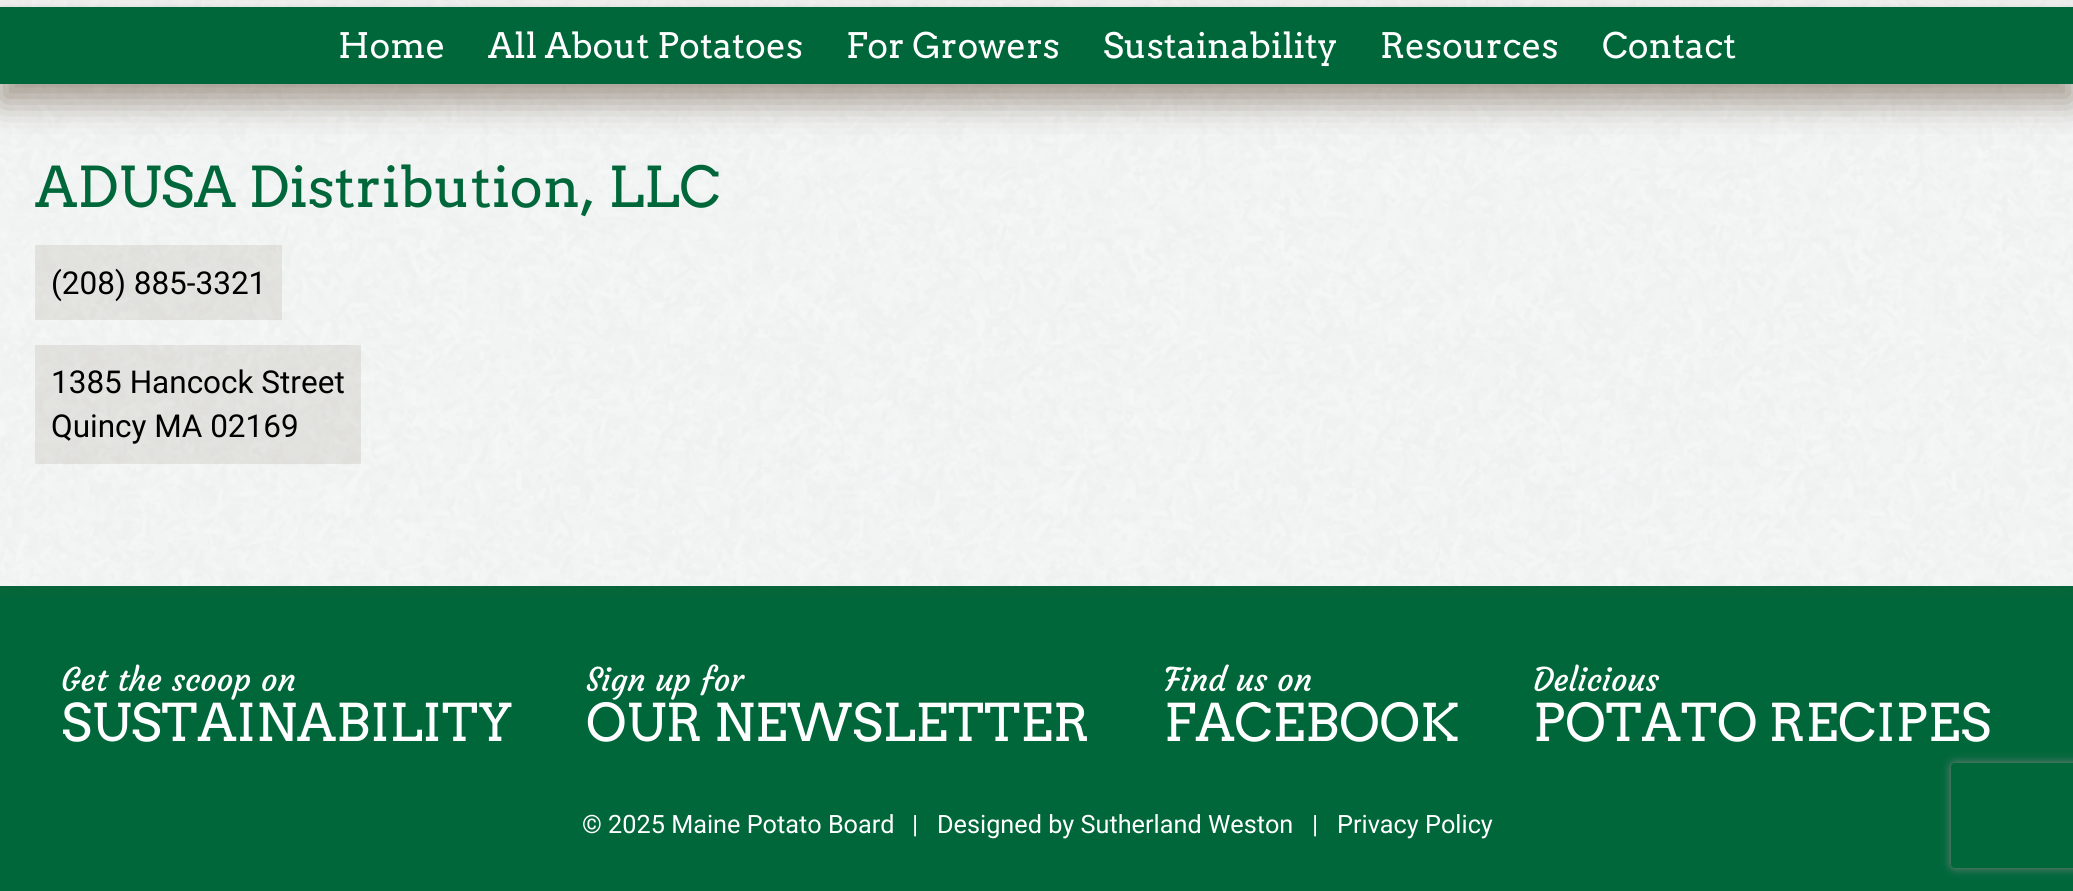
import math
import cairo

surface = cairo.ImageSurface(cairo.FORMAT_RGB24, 2073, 891)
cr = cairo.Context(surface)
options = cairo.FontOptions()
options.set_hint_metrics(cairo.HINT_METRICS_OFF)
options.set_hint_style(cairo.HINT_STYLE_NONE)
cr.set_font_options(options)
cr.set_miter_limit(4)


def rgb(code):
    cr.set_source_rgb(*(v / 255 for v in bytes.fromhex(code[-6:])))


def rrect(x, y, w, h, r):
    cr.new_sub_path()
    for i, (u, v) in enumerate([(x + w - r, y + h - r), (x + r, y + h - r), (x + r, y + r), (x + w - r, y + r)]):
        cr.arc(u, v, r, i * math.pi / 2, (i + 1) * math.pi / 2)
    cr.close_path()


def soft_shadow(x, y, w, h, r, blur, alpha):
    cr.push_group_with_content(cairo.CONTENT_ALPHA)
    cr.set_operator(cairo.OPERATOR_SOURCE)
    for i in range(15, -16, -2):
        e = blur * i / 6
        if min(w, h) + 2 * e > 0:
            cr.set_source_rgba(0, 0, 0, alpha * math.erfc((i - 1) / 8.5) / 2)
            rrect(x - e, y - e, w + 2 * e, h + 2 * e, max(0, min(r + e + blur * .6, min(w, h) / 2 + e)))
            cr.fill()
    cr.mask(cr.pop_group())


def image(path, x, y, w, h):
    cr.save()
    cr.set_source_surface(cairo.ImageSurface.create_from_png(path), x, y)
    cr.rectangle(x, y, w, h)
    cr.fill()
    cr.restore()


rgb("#ffffff")
cr.paint()
image("img/1.png", 0, 0, 2073, 586)
rgb("#533e25")
soft_shadow(0, 25, 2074, 77, 0, 17.5, 0.5)
rgb("#00673a")
cr.rectangle(0, 586, 2073, 305)
cr.fill()
cr.save()
cr.rectangle(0, 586, 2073, 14)
cr.clip()
rgb("#533e25")
soft_shadow(0, 67, 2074, 502, 0, 17.5, 0.5)
cr.restore()
cr.rectangle(0, 7, 2073, 77)
cr.fill()
cr.set_source_rgba(0.325, 0.243, 0.145, 0.1)
cr.rectangle(35, 245, 247, 75)
cr.fill()
cr.rectangle(35, 345, 326, 119)
cr.fill()
cr.save()
cr.set_fill_rule(cairo.FILL_RULE_EVEN_ODD)
cr.new_path()
cr.move_to(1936, 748)
cr.line_to(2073, 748)
cr.line_to(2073, 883)
cr.line_to(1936, 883)
cr.close_path()
cr.move_to(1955, 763)
cr.line_to(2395, 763)
cr.curve_to(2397, 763, 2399, 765, 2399, 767)
cr.line_to(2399, 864)
cr.curve_to(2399, 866, 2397, 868, 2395, 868)
cr.line_to(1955, 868)
cr.curve_to(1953, 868, 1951, 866, 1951, 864)
cr.line_to(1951, 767)
cr.curve_to(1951, 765, 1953, 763, 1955, 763)
cr.close_path()
cr.clip()
rgb("#808080")
soft_shadow(1951, 763, 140, 105, 4, 4.5, 1)
cr.restore()
cr.select_font_face("Arvo")
cr.set_font_size(35)
rgb("#ffffff")
for x, y, s in [
    (338, 58, "Home"),
    (488, 58, "All About Potatoes"),
    (846, 58, "For Growers"),
    (1103, 58, "Sustainability"),
    (1380, 58, "Resources"),
    (1602, 58, "Contact"),
]:
    cr.move_to(x, y)
    cr.show_text(s)
cr.set_font_size(56)
rgb("#00673a")
cr.move_to(35, 207)
cr.show_text("ADUSA Distribution, LLC")
cr.select_font_face("Roboto")
cr.set_font_size(31.5)
rgb("#000000")
for x, y, s in [
    (51, 294, "(208) 885-3321"),
    (51, 393, "1385 Hancock Street"),
    (51, 437, "Quincy MA 02169"),
]:
    cr.move_to(x, y)
    cr.show_text(s)
cr.select_font_face("Courgette")
cr.set_font_size(32.25)
rgb("#ffffff")
cr.move_to(61, 691)
cr.show_text("Get the scoop on")
cr.select_font_face("Arvo")
cr.set_font_size(51.75)
cr.move_to(61, 741)
cr.show_text("SUSTAINABILITY")
cr.select_font_face("Courgette")
cr.set_font_size(32.25)
cr.move_to(586, 691)
cr.show_text("Sign up for")
cr.select_font_face("Arvo")
cr.set_font_size(51.75)
cr.move_to(586, 741)
cr.show_text("OUR NEWSLETTER")
cr.select_font_face("Courgette")
cr.set_font_size(32.25)
cr.move_to(1164, 691)
cr.show_text("Find us on")
cr.select_font_face("Arvo")
cr.set_font_size(51.75)
cr.move_to(1164, 741)
cr.show_text("FACEBOOK")
cr.select_font_face("Courgette")
cr.set_font_size(32.25)
cr.move_to(1533, 691)
cr.show_text("Delicious")
cr.select_font_face("Arvo")
cr.set_font_size(51.75)
cr.move_to(1533, 741)
cr.show_text("POTATO RECIPES")
cr.select_font_face("Roboto")
cr.set_font_size(25.25)
for x, y, s in [
    (582, 833, "© 2025 Maine Potato Board"),
    (912, 833, "|"),
    (937, 833, "Designed by Sutherland Weston"),
    (1312, 833, "|"),
    (1337, 833, "Privacy Policy"),
]:
    cr.move_to(x, y)
    cr.show_text(s)
surface.write_to_png("page.png")
